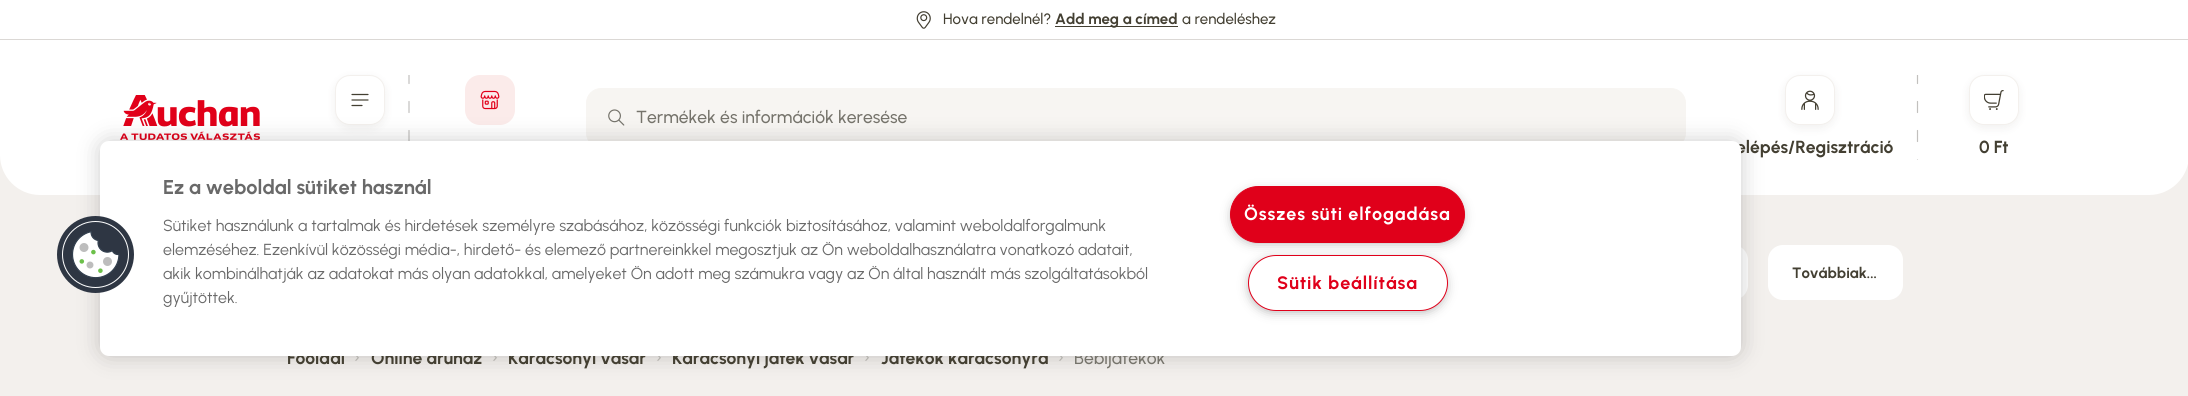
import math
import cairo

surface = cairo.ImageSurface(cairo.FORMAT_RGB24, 2188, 396)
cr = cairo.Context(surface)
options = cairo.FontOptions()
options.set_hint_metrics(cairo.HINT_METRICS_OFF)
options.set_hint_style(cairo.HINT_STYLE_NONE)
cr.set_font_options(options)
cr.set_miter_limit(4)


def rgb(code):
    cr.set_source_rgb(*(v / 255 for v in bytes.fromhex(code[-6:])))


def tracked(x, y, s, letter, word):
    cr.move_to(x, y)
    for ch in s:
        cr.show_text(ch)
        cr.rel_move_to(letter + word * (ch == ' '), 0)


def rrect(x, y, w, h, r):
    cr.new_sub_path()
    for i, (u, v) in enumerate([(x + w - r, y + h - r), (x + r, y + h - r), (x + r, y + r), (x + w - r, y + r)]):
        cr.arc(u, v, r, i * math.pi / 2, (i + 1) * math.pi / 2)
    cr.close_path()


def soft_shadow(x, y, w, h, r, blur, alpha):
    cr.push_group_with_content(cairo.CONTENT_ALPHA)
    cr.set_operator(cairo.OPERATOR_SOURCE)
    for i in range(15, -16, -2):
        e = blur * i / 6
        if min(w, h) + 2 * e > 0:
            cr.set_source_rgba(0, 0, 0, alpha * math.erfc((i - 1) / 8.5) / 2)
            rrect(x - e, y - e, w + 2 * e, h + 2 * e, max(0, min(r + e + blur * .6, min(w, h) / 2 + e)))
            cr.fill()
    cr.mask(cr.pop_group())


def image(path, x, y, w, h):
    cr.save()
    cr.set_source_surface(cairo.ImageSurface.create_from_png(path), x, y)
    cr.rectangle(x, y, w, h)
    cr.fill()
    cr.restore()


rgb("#f3f0ed")
cr.paint()
rgb("#ffffff")
cr.new_path()
cr.move_to(0, 0)
cr.line_to(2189, 0)
cr.line_to(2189, 155)
cr.curve_to(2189, 177, 2171, 195, 2149, 195)
cr.line_to(40, 195)
cr.curve_to(18, 195, 0, 177, 0, 155)
cr.close_path()
cr.fill()
rgb("#dbd8d5")
cr.rectangle(0, 39, 2188, 1)
cr.fill()
image("img/1.png", 916, 11, 15, 18)
rgb("#433f32")
cr.rectangle(1055, 26, 123, 1)
cr.fill()
image("img/2.png", 120, 95, 140, 45)
rgb("#433f32")
soft_shadow(335, 78, 50, 50, 15, 5, 0.08)
rgb("#ffffff")
rrect(335.5, 75.5, 49, 49, 14.5)
cr.fill_preserve()
rgb("#f3f0ed")
cr.set_line_width(1)
cr.stroke()
cr.new_path()
cr.move_to(352, 100)
cr.line_to(368, 100)
cr.move_to(352, 94.5)
cr.line_to(368, 94.5)
cr.move_to(352, 105.5)
cr.line_to(362, 105.5)
rgb("#433f32")
cr.set_line_width(1.2)
cr.set_line_cap(cairo.LINE_CAP_ROUND)
cr.set_line_join(cairo.LINE_JOIN_ROUND)
cr.stroke()
cr.save()
cr.rectangle(408, 75, 3, 85)
cr.clip()
cr.new_path()
cr.move_to(409, 72.5)
cr.line_to(409, 83.5)
cr.move_to(409, 101.5)
cr.line_to(409, 112.5)
cr.move_to(409, 130.5)
cr.line_to(409, 141.5)
cr.move_to(409, 160)
cr.line_to(409, 160)
rgb("#c2c0be")
cr.set_line_join(cairo.LINE_JOIN_MITER)
cr.stroke()
cr.restore()
rgb("#f7f5f2")
rrect(586.5, 88.5, 1099, 59, 14.5)
cr.fill_preserve()
cr.set_line_width(1)
cr.set_line_cap(cairo.LINE_CAP_BUTT)
cr.set_line_join(cairo.LINE_JOIN_MITER)
cr.stroke()
image("img/3.png", 608, 109, 17, 17)
rgb("#fbebea")
rrect(465, 75, 50, 50, 15)
cr.fill()
image("img/4.png", 480, 90, 20, 20)
rgb("#433f32")
soft_shadow(1785, 78, 50, 50, 15, 5, 0.08)
rgb("#ffffff")
rrect(1785.5, 75.5, 49, 49, 14.5)
cr.fill_preserve()
rgb("#f3f0ed")
cr.stroke()
image("img/5.png", 1801, 90, 18, 20)
cr.save()
cr.rectangle(1916, 75, 3, 85)
cr.clip()
cr.new_path()
cr.move_to(1917.5, 72.5)
cr.line_to(1917.5, 83.5)
cr.move_to(1917.5, 101.5)
cr.line_to(1917.5, 112.5)
cr.move_to(1917.5, 130.5)
cr.line_to(1917.5, 141.5)
cr.move_to(1917.5, 160)
cr.line_to(1917.5, 160)
rgb("#c2c0be")
cr.set_line_width(1.2)
cr.set_line_cap(cairo.LINE_CAP_ROUND)
cr.stroke()
cr.restore()
rgb("#433f32")
soft_shadow(1969, 78, 50, 50, 15, 5, 0.08)
rgb("#ffffff")
rrect(1969.5, 75.5, 49, 49, 14.5)
cr.fill_preserve()
rgb("#f3f0ed")
cr.stroke()
image("img/6.png", 1984, 90, 20, 20)
rgb("#ffffff")
rrect(1471, 245, 277, 55, 15)
cr.fill()
rrect(1768, 245, 135, 55, 15)
cr.fill()
rgb("#000000")
soft_shadow(100, 141, 1641, 215, 9, 11, 0.2)
cr.select_font_face("Urbanist Medium")
cr.set_font_size(15)
rgb("#433f32")
cr.move_to(943, 24)
cr.show_text("Hova rendelnél?")
cr.select_font_face("Urbanist", cairo.FONT_SLANT_NORMAL, cairo.FONT_WEIGHT_BOLD)
cr.move_to(1055, 24)
cr.show_text("Add meg a címed")
cr.select_font_face("Urbanist Medium")
cr.move_to(1182, 24)
cr.show_text("a rendeléshez")
cr.set_font_size(17.5)
rgb("#75736b")
cr.move_to(636, 123)
cr.show_text("Termékek és információk keresése")
cr.select_font_face("Urbanist", cairo.FONT_SLANT_NORMAL, cairo.FONT_WEIGHT_BOLD)
rgb("#433f32")
cr.move_to(1736, 153)
cr.show_text("elépés/Regisztráció")
cr.move_to(1979, 153)
cr.show_text("0 Ft")
cr.set_font_size(15)
cr.move_to(1792, 278)
cr.show_text("Továbbiak...")
cr.set_font_size(17.5)
cr.move_to(287, 364)
cr.show_text("Főoldal")
cr.select_font_face("Urbanist Medium")
rgb("#b4b2ad")
cr.move_to(354, 363)
cr.show_text("›")
cr.select_font_face("Urbanist", cairo.FONT_SLANT_NORMAL, cairo.FONT_WEIGHT_BOLD)
rgb("#433f32")
cr.move_to(371, 364)
cr.show_text("Online áruház")
cr.select_font_face("Urbanist Medium")
rgb("#b4b2ad")
cr.move_to(492, 363)
cr.show_text("›")
cr.select_font_face("Urbanist", cairo.FONT_SLANT_NORMAL, cairo.FONT_WEIGHT_BOLD)
rgb("#433f32")
cr.move_to(508, 364)
cr.show_text("Karácsonyi vásár")
cr.select_font_face("Urbanist Medium")
rgb("#b4b2ad")
cr.move_to(656, 363)
cr.show_text("›")
cr.select_font_face("Urbanist", cairo.FONT_SLANT_NORMAL, cairo.FONT_WEIGHT_BOLD)
rgb("#433f32")
cr.move_to(672, 364)
cr.show_text("Karácsonyi játék vásár")
cr.select_font_face("Urbanist Medium")
rgb("#b4b2ad")
cr.move_to(864, 363)
cr.show_text("›")
cr.select_font_face("Urbanist", cairo.FONT_SLANT_NORMAL, cairo.FONT_WEIGHT_BOLD)
rgb("#433f32")
cr.move_to(881, 364)
cr.show_text("Játékok karácsonyra")
cr.select_font_face("Urbanist Medium")
rgb("#b4b2ad")
cr.move_to(1058, 363)
cr.show_text("›")
rgb("#75736b")
cr.move_to(1074, 364)
cr.show_text("Bébijátékok")
rgb("#ffffff")
rrect(100, 141, 1641, 215, 9)
cr.fill()
image("img/7.png", 57, 216, 77, 77)
cr.select_font_face("Urbanist", cairo.FONT_SLANT_NORMAL, cairo.FONT_WEIGHT_BOLD)
cr.set_font_size(20)
rgb("#696969")
cr.move_to(163, 194)
cr.show_text("Ez a weboldal sütiket használ")
cr.select_font_face("Urbanist")
cr.set_font_size(16)
for x, y, s in [
    (163, 231, "Sütiket használunk a tartalmak és hirdetések személyre szabásához, közösségi funkciók biztosításához, valamint weboldalforgalmunk"),
    (163, 255, "elemzéséhez. Ezenkívül közösségi média-, hirdető- és elemező partnereinkkel megosztjuk az Ön weboldalhasználatra vonatkozó adatait,"),
    (163, 279, "akik kombinálhatják az adatokat más olyan adatokkal, amelyeket Ön adott meg számukra vagy az Ön által használt más szolgáltatásokból"),
    (163, 303, "gyűjtöttek."),
]:
    cr.move_to(x, y)
    cr.show_text(s)
rgb("#999999")
soft_shadow(1234, 193, 227, 48, 24, 6, 1)
rgb("#e0001a")
rrect(1230.5, 186.5, 234, 56, 28)
cr.fill_preserve()
cr.stroke()
cr.select_font_face("Urbanist", cairo.FONT_SLANT_NORMAL, cairo.FONT_WEIGHT_BOLD)
cr.set_font_size(18)
rgb("#ffffff")
tracked(1244, 220, "Összes süti elfogadása", 0.9, 0)
rgb("#999999")
soft_shadow(1251, 261, 193, 49, 24.5, 6, 1)
rgb("#ffffff")
rrect(1248.5, 255.5, 199, 55, 27.5)
cr.fill_preserve()
rgb("#e0001a")
cr.stroke()
tracked(1277, 289, "Sütik beállítása", 0.9, 0)
surface.write_to_png("page.png")
